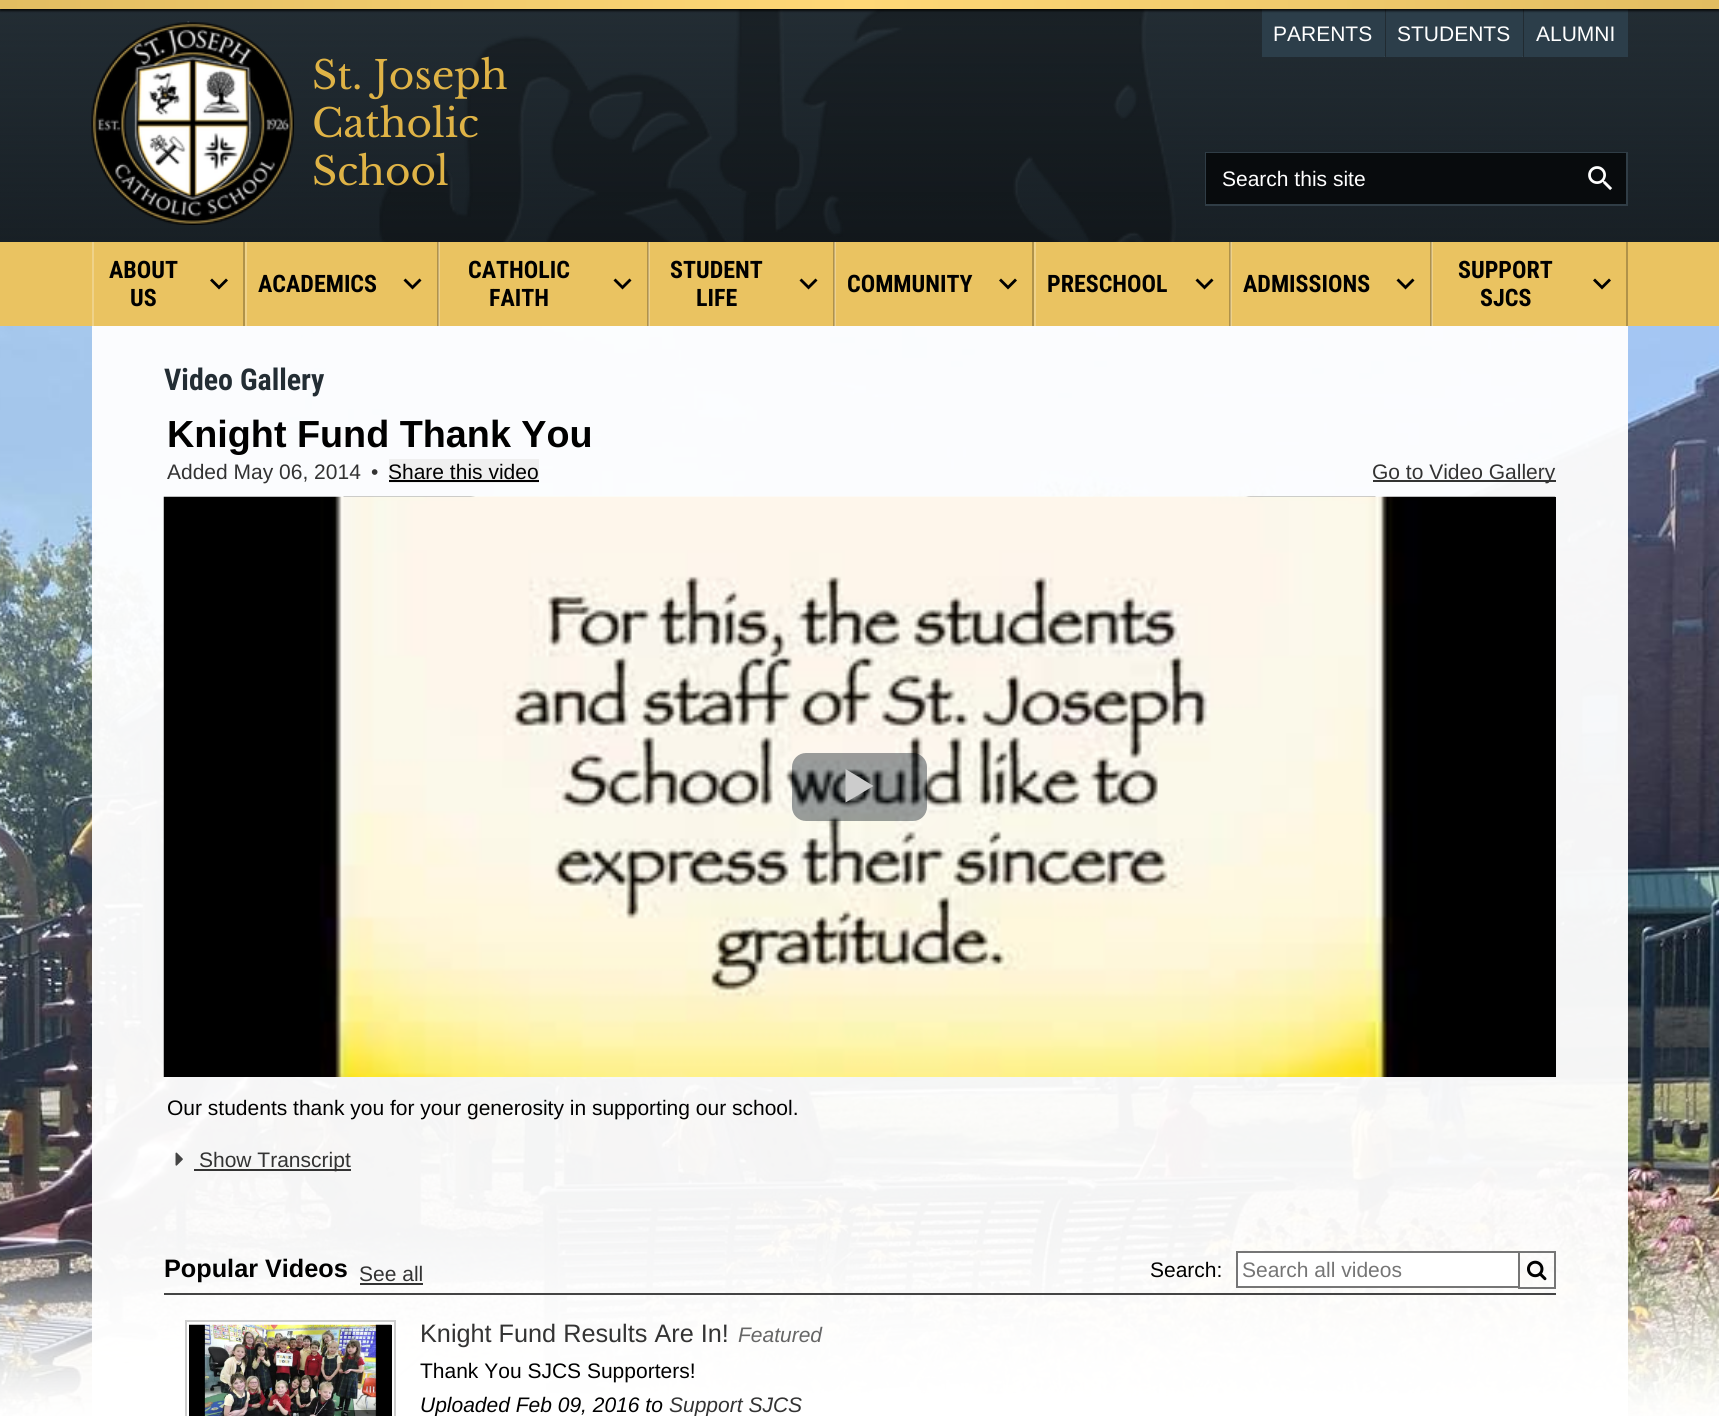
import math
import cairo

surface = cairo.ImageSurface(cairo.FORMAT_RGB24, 1719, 1416)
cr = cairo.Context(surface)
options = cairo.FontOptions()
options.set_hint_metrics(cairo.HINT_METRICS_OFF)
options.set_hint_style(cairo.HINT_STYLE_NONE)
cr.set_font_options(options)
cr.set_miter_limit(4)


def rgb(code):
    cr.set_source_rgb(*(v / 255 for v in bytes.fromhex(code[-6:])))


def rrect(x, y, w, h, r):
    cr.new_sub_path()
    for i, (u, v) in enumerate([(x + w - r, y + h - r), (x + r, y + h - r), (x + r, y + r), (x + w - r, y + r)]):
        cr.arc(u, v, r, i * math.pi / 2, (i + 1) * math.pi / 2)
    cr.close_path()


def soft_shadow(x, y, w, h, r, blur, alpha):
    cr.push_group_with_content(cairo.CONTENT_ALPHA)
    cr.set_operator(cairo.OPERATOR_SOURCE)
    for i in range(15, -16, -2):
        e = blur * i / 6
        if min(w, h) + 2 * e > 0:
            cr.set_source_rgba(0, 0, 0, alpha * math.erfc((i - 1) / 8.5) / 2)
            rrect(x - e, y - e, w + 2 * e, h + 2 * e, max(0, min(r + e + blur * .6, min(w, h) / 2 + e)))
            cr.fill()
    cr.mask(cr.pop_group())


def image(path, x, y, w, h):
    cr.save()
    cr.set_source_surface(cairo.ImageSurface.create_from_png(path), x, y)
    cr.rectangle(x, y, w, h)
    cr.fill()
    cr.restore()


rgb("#ffffff")
cr.paint()
rgb("#232d34")
cr.rectangle(0, 9, 1719, 233)
cr.fill()
image("img/1.png", 0, 9, 1719, 233)
for x, y, w, h, color in [
    (1262, 9, 123, 48, "#2c3e4a"),
    (1386, 9, 137, 48, "#2c3e4a"),
    (1524, 9, 104, 48, "#2c3e4a"),
]:
    rgb(color)
    cr.rectangle(x, y, w, h)
    cr.fill()
rgb("#000000")
soft_shadow(0, 2, 1719, 9, 0, 1, 0.75)
gradient = cairo.LinearGradient(1719, 4.5, 0, 4.5)
gradient.add_color_stop_rgba(0, 0.886, 0.741, 0.38, 1)
gradient.add_color_stop_rgba(0.5, 1, 0.847, 0.467, 1)
gradient.add_color_stop_rgba(1, 0.886, 0.741, 0.38, 1)
cr.set_source(gradient)
cr.rectangle(0, 0, 1719, 9)
cr.fill()
cr.save()
cr.rectangle(1262, 9, 123, 48)
cr.clip()
rgb("#6f8594")
cr.set_fill_rule(cairo.FILL_RULE_EVEN_ODD)
cr.new_path()
cr.move_to(1113, -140)
cr.line_to(1533, -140)
cr.line_to(1533, 206)
cr.line_to(1113, 206)
cr.close_path()
cr.move_to(1262, 6)
cr.line_to(1384, 6)
cr.curve_to(1385, 6, 1386, 7, 1386, 8)
cr.line_to(1386, 56)
cr.curve_to(1386, 56, 1385, 57, 1384, 57)
cr.line_to(1262, 57)
cr.curve_to(1261, 57, 1260, 56, 1260, 56)
cr.line_to(1260, 8)
cr.curve_to(1260, 7, 1261, 6, 1262, 6)
cr.close_path()
cr.fill()
cr.restore()
cr.save()
cr.rectangle(1386, 9, 137, 48)
cr.clip()
rgb("#6f8594")
cr.set_fill_rule(cairo.FILL_RULE_EVEN_ODD)
cr.new_path()
cr.move_to(1238, -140)
cr.line_to(1671, -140)
cr.line_to(1671, 206)
cr.line_to(1238, 206)
cr.close_path()
cr.move_to(1386, 6)
cr.line_to(1522, 6)
cr.curve_to(1523, 6, 1524, 7, 1524, 8)
cr.line_to(1524, 56)
cr.curve_to(1524, 56, 1523, 57, 1522, 57)
cr.line_to(1386, 57)
cr.curve_to(1385, 57, 1384, 56, 1384, 56)
cr.line_to(1384, 8)
cr.curve_to(1384, 7, 1385, 6, 1386, 6)
cr.close_path()
cr.fill()
cr.restore()
image("img/2.png", 91, 21, 203, 204)
cr.rectangle(1206, 153, 421, 52)
rgb("#303d46")
cr.stroke()
rgb("#080b0d")
cr.rectangle(1206, 153, 420, 51)
cr.fill()
image("img/3.png", 1588, 166, 25, 25)
for x, y, w, h, color in [
    (0, 242, 1719, 84, "#eac361"),
    (243, 242, 2, 84, "#b09249"),
    (92, 242, 2, 84, "#efd289"),
]:
    rgb(color)
    cr.rectangle(x, y, w, h)
    cr.fill()
rgb("#000000")
cr.new_path()
cr.move_to(226, 278.5)
cr.line_to(228, 280.5)
cr.line_to(219, 289.5)
cr.line_to(210, 280.5)
cr.line_to(212, 278.5)
cr.line_to(219, 285.5)
cr.close_path()
cr.fill()
rgb("#b09249")
cr.rectangle(437, 242, 2, 84)
cr.fill()
rgb("#efd289")
cr.rectangle(245, 242, 2, 84)
cr.fill()
rgb("#000000")
cr.new_path()
cr.move_to(419.5, 278.5)
cr.line_to(421.5, 280.5)
cr.line_to(412.5, 289.5)
cr.line_to(403.5, 280.5)
cr.line_to(405.5, 278.5)
cr.line_to(412.5, 285.5)
cr.close_path()
cr.fill()
rgb("#b09249")
cr.rectangle(647, 242, 2, 84)
cr.fill()
cr.set_source_rgba(1, 1, 1, 0.25)
cr.rectangle(438, 242, 2, 84)
cr.fill()
rgb("#000000")
cr.new_path()
cr.move_to(629.5, 278.5)
cr.line_to(631.5, 280.5)
cr.line_to(622.5, 289.5)
cr.line_to(613.5, 280.5)
cr.line_to(615.5, 278.5)
cr.line_to(622.5, 285.5)
cr.close_path()
cr.fill()
rgb("#b09249")
cr.rectangle(833, 242, 2, 84)
cr.fill()
cr.set_source_rgba(1, 1, 1, 0.25)
cr.rectangle(648, 242, 2, 84)
cr.fill()
rgb("#000000")
cr.new_path()
cr.move_to(815.5, 278.5)
cr.line_to(817.5, 280.5)
cr.line_to(808.5, 289.5)
cr.line_to(799.5, 280.5)
cr.line_to(801.5, 278.5)
cr.line_to(808.5, 285.5)
cr.close_path()
cr.fill()
rgb("#b09249")
cr.rectangle(1032, 242, 2, 84)
cr.fill()
cr.set_source_rgba(1, 1, 1, 0.25)
cr.rectangle(834, 242, 2, 84)
cr.fill()
rgb("#000000")
cr.new_path()
cr.move_to(1015, 278.5)
cr.line_to(1017, 280.5)
cr.line_to(1008, 289.5)
cr.line_to(999, 280.5)
cr.line_to(1001, 278.5)
cr.line_to(1008, 285.5)
cr.close_path()
cr.fill()
rgb("#b09249")
cr.rectangle(1229, 242, 2, 84)
cr.fill()
rgb("#efd289")
cr.rectangle(1034, 242, 2, 84)
cr.fill()
rgb("#000000")
cr.new_path()
cr.move_to(1211.5, 278.5)
cr.line_to(1213.5, 280.5)
cr.line_to(1204.5, 289.5)
cr.line_to(1195.5, 280.5)
cr.line_to(1197.5, 278.5)
cr.line_to(1204.5, 285.5)
cr.close_path()
cr.fill()
rgb("#b09249")
cr.rectangle(1430, 242, 2, 84)
cr.fill()
cr.set_source_rgba(1, 1, 1, 0.25)
cr.rectangle(1230, 242, 2, 84)
cr.fill()
rgb("#000000")
cr.new_path()
cr.move_to(1412.5, 278.5)
cr.line_to(1414.5, 280.5)
cr.line_to(1405.5, 289.5)
cr.line_to(1396.5, 280.5)
cr.line_to(1398.5, 278.5)
cr.line_to(1405.5, 285.5)
cr.close_path()
cr.fill()
rgb("#b09249")
cr.rectangle(1626, 242, 2, 84)
cr.fill()
cr.set_source_rgba(1, 1, 1, 0.25)
cr.rectangle(1431, 242, 2, 84)
cr.fill()
rgb("#000000")
cr.new_path()
cr.move_to(1609, 278.5)
cr.line_to(1611, 280.5)
cr.line_to(1602, 289.5)
cr.line_to(1593, 280.5)
cr.line_to(1595, 278.5)
cr.line_to(1602, 285.5)
cr.close_path()
cr.fill()
image("img/4.png", 0, 326, 1719, 1090)
image("img/5.png", 0, 1232, 1719, 184)
cr.set_source_rgba(1, 1, 1, 0.95)
cr.rectangle(92, 326, 1536, 1090)
cr.fill()
rgb("#efefef")
cr.rectangle(389, 459, 150, 24)
cr.fill()
rgb("#000000")
cr.rectangle(389, 480, 150, 2)
cr.fill()
rgb("#333333")
cr.rectangle(1373, 480, 183, 2)
cr.fill()
rgb("#000000")
cr.rectangle(1555, 497, 1, 580)
cr.fill()
image("img/7.png", 343, 496, 1033, 1)
image("img/6.png", 163, 496, 1393, 581)
cr.save()
cr.set_fill_rule(cairo.FILL_RULE_EVEN_ODD)
cr.new_path()
cr.move_to(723, 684)
cr.line_to(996, 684)
cr.line_to(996, 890)
cr.line_to(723, 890)
cr.close_path()
cr.move_to(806, 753)
cr.line_to(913, 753)
cr.curve_to(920.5, 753, 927, 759.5, 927, 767)
cr.line_to(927, 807)
cr.curve_to(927, 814.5, 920.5, 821, 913, 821)
cr.line_to(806, 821)
cr.curve_to(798.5, 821, 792, 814.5, 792, 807)
cr.line_to(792, 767)
cr.curve_to(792, 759.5, 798.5, 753, 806, 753)
cr.close_path()
cr.clip()
rgb("#ffffff")
soft_shadow(792, 753, 135, 68, 14, 22.5, 0.25)
cr.restore()
cr.set_source_rgba(0.027, 0.078, 0.118, 0.4)
rrect(792, 753, 135, 68, 14)
cr.fill()
rgb("#cccccc")
cr.new_path()
cr.move_to(845.5, 769)
cr.line_to(873.5, 786)
cr.line_to(845.5, 802.5)
cr.close_path()
cr.fill()
image("img/8.png", 175, 1152, 8, 14)
for x, y, w, h, color in [
    (194, 1169, 157, 2, "#333333"),
    (164, 1293, 1392, 2, "#444444"),
    (360, 1283, 63, 2, "#333333"),
    (1238, 1253, 280, 33, "#ffffff"),
    (1236, 1251, 282, 2, "#767676"),
    (1236, 1286, 282, 2, "#767676"),
    (1236, 1251, 2, 36, "#767676"),
]:
    rgb(color)
    cr.rectangle(x, y, w, h)
    cr.fill()
cr.rectangle(1519, 1252, 36, 36)
cr.stroke()
image("img/9.png", 1527, 1260, 20, 21)
cr.rectangle(186, 1321, 209, 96)
rgb("#cccccc")
cr.stroke()
rgb("#000000")
cr.rectangle(391, 1325, 1, 91)
cr.fill()
image("img/10.png", 189, 1324, 203, 92)
cr.set_source_rgba(0, 0, 0, 0.6)
rrect(341, 1410, 45, 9, 3)
cr.fill()
cr.select_font_face("Liberation Sans")
cr.set_font_size(21)
rgb("#ffffff")
for x, y, s in [
    (1273, 41, "PARENTS"),
    (1397, 41, "STUDENTS"),
    (1536, 41, "ALUMNI"),
]:
    cr.move_to(x, y)
    cr.show_text(s)
cr.select_font_face("Libre Baskerville")
cr.set_font_size(39)
rgb("#dfb346")
for x, y, s in [
    (312, 89, "St. Joseph"),
    (312, 137, "Catholic"),
    (312, 185, "School"),
]:
    cr.move_to(x, y)
    cr.show_text(s)
cr.select_font_face("Liberation Sans")
cr.set_font_size(21)
rgb("#ffffff")
cr.move_to(1222, 186)
cr.show_text("Search this site")
cr.select_font_face("Roboto Condensed", cairo.FONT_SLANT_NORMAL, cairo.FONT_WEIGHT_BOLD)
cr.set_font_size(24)
rgb("#000000")
for x, y, s in [
    (109, 278, "ABOUT"),
    (130, 306, "US"),
    (258, 292, "ACADEMICS"),
    (468, 278, "CATHOLIC"),
    (489, 306, "FAITH"),
    (670, 278, "STUDENT"),
    (696, 306, "LIFE"),
    (847, 292, "COMMUNITY"),
    (1047, 292, "PRESCHOOL"),
    (1243, 292, "ADMISSIONS"),
    (1458, 278, "SUPPORT"),
    (1480, 306, "SJCS"),
]:
    cr.move_to(x, y)
    cr.show_text(s)
cr.set_font_size(30)
rgb("#232d34")
cr.move_to(164, 390)
cr.show_text("Video Gallery")
cr.select_font_face("Liberation Sans", cairo.FONT_SLANT_NORMAL, cairo.FONT_WEIGHT_BOLD)
cr.set_font_size(37.75)
rgb("#000000")
cr.move_to(167, 447)
cr.show_text("Knight Fund Thank You")
cr.select_font_face("Liberation Sans")
cr.set_font_size(21)
rgb("#333333")
cr.move_to(167, 479)
cr.show_text("Added May 06, 2014")
cr.move_to(371, 479)
cr.show_text("•")
rgb("#000000")
cr.move_to(388, 479)
cr.show_text("Share this video")
rgb("#333333")
cr.move_to(1372, 479)
cr.show_text("Go to Video Gallery")
rgb("#000000")
cr.move_to(167, 1115)
cr.show_text("Our students thank you for your generosity in supporting our school.")
rgb("#333333")
cr.move_to(199, 1167)
cr.show_text("Show Transcript")
cr.select_font_face("Liberation Sans", cairo.FONT_SLANT_NORMAL, cairo.FONT_WEIGHT_BOLD)
cr.set_font_size(25.25)
rgb("#000000")
cr.move_to(164, 1277)
cr.show_text("Popular Videos")
cr.select_font_face("Liberation Sans")
cr.set_font_size(21)
rgb("#333333")
cr.move_to(359, 1281)
cr.show_text("See all")
rgb("#000000")
cr.move_to(1150, 1277)
cr.show_text("Search:")
rgb("#757575")
cr.move_to(1242, 1277)
cr.show_text("Search all videos")
cr.set_font_size(25.25)
rgb("#333333")
cr.move_to(420, 1342)
cr.show_text("Knight Fund Results Are In!")
cr.select_font_face("Liberation Sans", cairo.FONT_SLANT_ITALIC)
cr.set_font_size(21)
rgb("#666666")
cr.move_to(738, 1342)
cr.show_text("Featured")
cr.select_font_face("Liberation Sans")
rgb("#000000")
cr.move_to(420, 1378)
cr.show_text("Thank You SJCS Supporters!")
cr.select_font_face("Liberation Sans", cairo.FONT_SLANT_ITALIC)
cr.move_to(420, 1412)
cr.show_text("Uploaded Feb 09, 2016 to")
rgb("#333333")
cr.move_to(669, 1412)
cr.show_text("Support SJCS")
surface.write_to_png("page.png")
